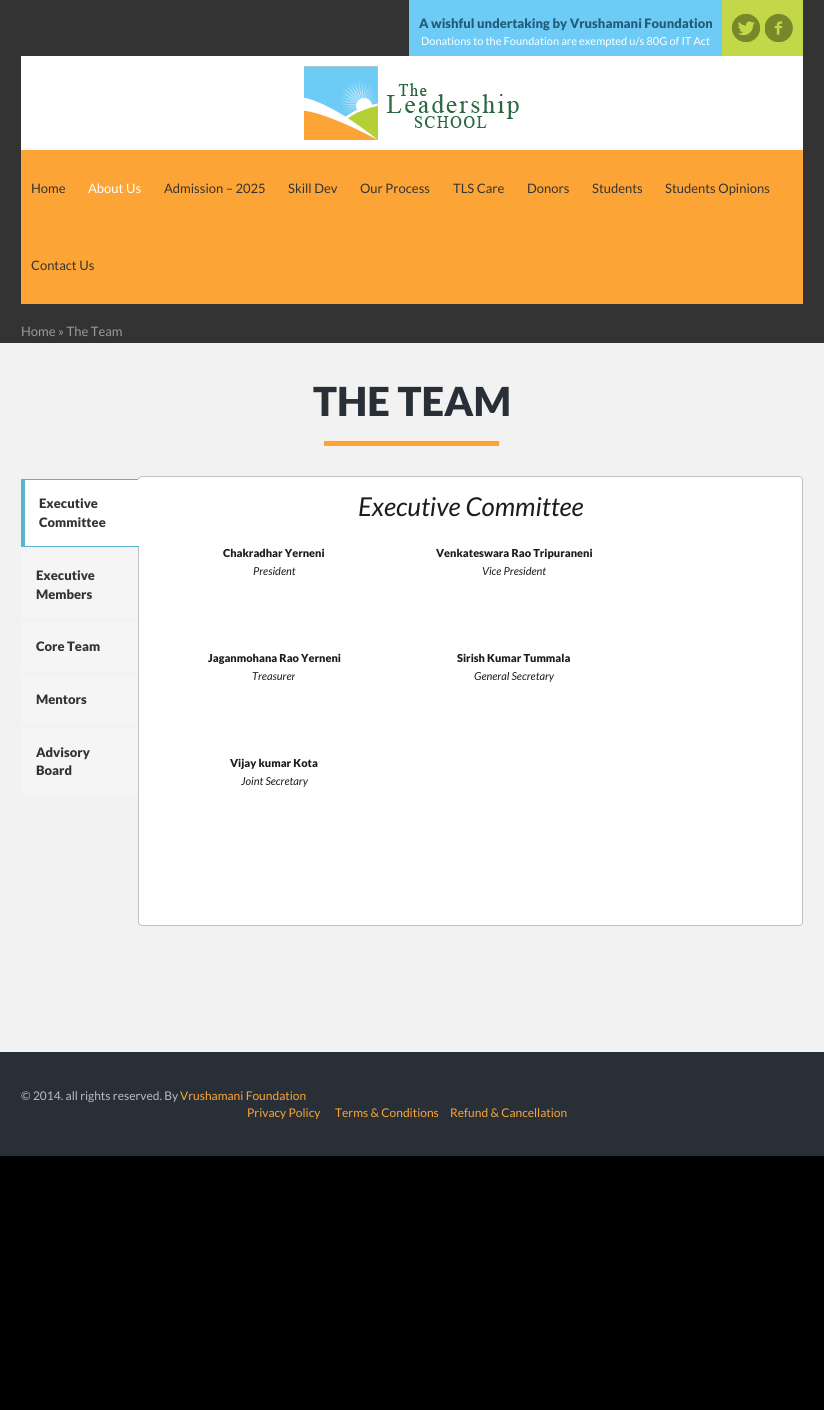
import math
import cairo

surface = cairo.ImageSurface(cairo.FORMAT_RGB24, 824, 1410)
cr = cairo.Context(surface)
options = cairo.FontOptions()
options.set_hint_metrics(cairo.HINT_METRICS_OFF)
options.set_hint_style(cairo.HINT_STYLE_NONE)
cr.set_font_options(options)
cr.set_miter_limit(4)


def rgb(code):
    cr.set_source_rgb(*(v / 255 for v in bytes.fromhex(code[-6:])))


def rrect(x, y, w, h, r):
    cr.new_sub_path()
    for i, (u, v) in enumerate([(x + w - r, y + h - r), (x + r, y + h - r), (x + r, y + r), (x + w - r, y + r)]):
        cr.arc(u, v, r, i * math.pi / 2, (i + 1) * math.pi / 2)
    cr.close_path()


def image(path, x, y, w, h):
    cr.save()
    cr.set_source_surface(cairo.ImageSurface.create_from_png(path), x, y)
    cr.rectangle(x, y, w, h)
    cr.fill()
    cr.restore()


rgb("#000000")
cr.paint()
for x, y, w, h, color in [
    (0, 0, 824, 343, "#333333"),
    (409, 0, 313, 56, "#6ecbf6"),
    (722, 0, 81, 56, "#c2d848"),
]:
    rgb(color)
    cr.rectangle(x, y, w, h)
    cr.fill()
image("img/1.png", 732, 14, 28, 28)
image("img/2.png", 765, 14, 28, 28)
rgb("#ffffff")
cr.rectangle(21, 56, 782, 94)
cr.fill()
image("img/3.png", 304, 66, 215, 74)
rgb("#fca436")
cr.rectangle(21, 150, 782, 154)
cr.fill()
rgb("#f2f2f2")
cr.rectangle(0, 343, 824, 709)
cr.fill()
image("img/4.png", 323, 440, 177, 6)
rgb("#ffffff")
cr.rectangle(25, 480, 113, 66)
cr.fill()
rrect(138.5, 476.5, 664, 449, 3.5)
cr.fill_preserve()
rgb("#c1c1c1")
cr.set_line_width(1)
cr.stroke()
for x, y, w, h, color in [
    (21, 479, 118, 1, "#5ab1d0"),
    (138, 479, 1, 68, "#ffffff"),
    (21, 546, 118, 1, "#5ab1d0"),
    (21, 479, 4, 68, "#5ab1d0"),
    (21, 551, 117, 67, "#f5f5f5"),
    (21, 622, 117, 49, "#f5f5f5"),
    (21, 675, 117, 49, "#f5f5f5"),
    (21, 728, 117, 67, "#f5f5f5"),
    (0, 1052, 824, 104, "#292f36"),
]:
    rgb(color)
    cr.rectangle(x, y, w, h)
    cr.fill()
cr.select_font_face("Lato Black")
cr.set_font_size(13)
rgb("#225d78")
cr.move_to(419, 28)
cr.show_text("A wishful undertaking by Vrushamani Foundation")
cr.select_font_face("Lato")
cr.set_font_size(11)
rgb("#ffffff")
cr.move_to(421, 45)
cr.show_text("Donations to the Foundation are exempted u/s 80G of IT Act")
cr.set_font_size(13)
rgb("#333333")
cr.move_to(31, 193)
cr.show_text("Home")
rgb("#ffffff")
cr.move_to(88, 193)
cr.show_text("About Us")
rgb("#333333")
for x, y, s in [
    (164, 193, "Admission – 2025"),
    (288, 193, "Skill Dev"),
    (360, 193, "Our Process"),
    (453, 193, "TLS Care"),
    (527, 193, "Donors"),
    (592, 193, "Students"),
    (665, 193, "Students Opinions"),
    (31, 270, "Contact Us"),
]:
    cr.move_to(x, y)
    cr.show_text(s)
rgb("#999999")
cr.move_to(21, 336)
cr.show_text("Home » The Team")
cr.select_font_face("Lato Black")
cr.set_font_size(40)
rgb("#292f36")
cr.move_to(313, 416)
cr.show_text("THE TEAM")
cr.set_font_size(13)
rgb("#333333")
for x, y, s in [
    (39, 508, "Executive"),
    (39, 527, "Committee"),
    (36, 580, "Executive"),
    (36, 599, "Members"),
    (36, 651, "Core Team"),
    (36, 704, "Mentors"),
    (36, 757, "Advisory"),
    (36, 775, "Board"),
]:
    cr.move_to(x, y)
    cr.show_text(s)
cr.select_font_face("Lato", cairo.FONT_SLANT_ITALIC)
cr.set_font_size(26)
rgb("#1c1c1c")
cr.move_to(358, 516)
cr.show_text("Executive Committee")
cr.select_font_face("Lato Black")
cr.set_font_size(11)
cr.move_to(223, 557)
cr.show_text("Chakradhar Yerneni")
cr.select_font_face("Lato", cairo.FONT_SLANT_ITALIC)
cr.move_to(253, 575)
cr.show_text("President")
cr.select_font_face("Lato Black")
cr.move_to(436, 557)
cr.show_text("Venkateswara Rao Tripuraneni")
cr.select_font_face("Lato", cairo.FONT_SLANT_ITALIC)
cr.move_to(482, 575)
cr.show_text("Vice President")
cr.select_font_face("Lato Black")
cr.move_to(208, 662)
cr.show_text("Jaganmohana Rao Yerneni")
cr.select_font_face("Lato", cairo.FONT_SLANT_ITALIC)
cr.move_to(252, 680)
cr.show_text("Treasurer")
cr.select_font_face("Lato Black")
cr.move_to(457, 662)
cr.show_text("Sirish Kumar Tummala")
cr.select_font_face("Lato", cairo.FONT_SLANT_ITALIC)
cr.move_to(474, 680)
cr.show_text("General Secretary")
cr.select_font_face("Lato Black")
cr.move_to(230, 767)
cr.show_text("Vijay kumar Kota")
cr.select_font_face("Lato", cairo.FONT_SLANT_ITALIC)
cr.move_to(241, 785)
cr.show_text("Joint Secretary")
cr.select_font_face("Lato")
cr.set_font_size(12)
rgb("#b3bcc7")
cr.move_to(21, 1100)
cr.show_text("© 2014. all rights reserved. By")
rgb("#fca436")
for x, y, s in [
    (180, 1100, "Vrushamani Foundation"),
    (247, 1117, "Privacy Policy"),
    (335, 1117, "Terms & Conditions"),
    (450, 1117, "Refund & Cancellation"),
]:
    cr.move_to(x, y)
    cr.show_text(s)
surface.write_to_png("page.png")
